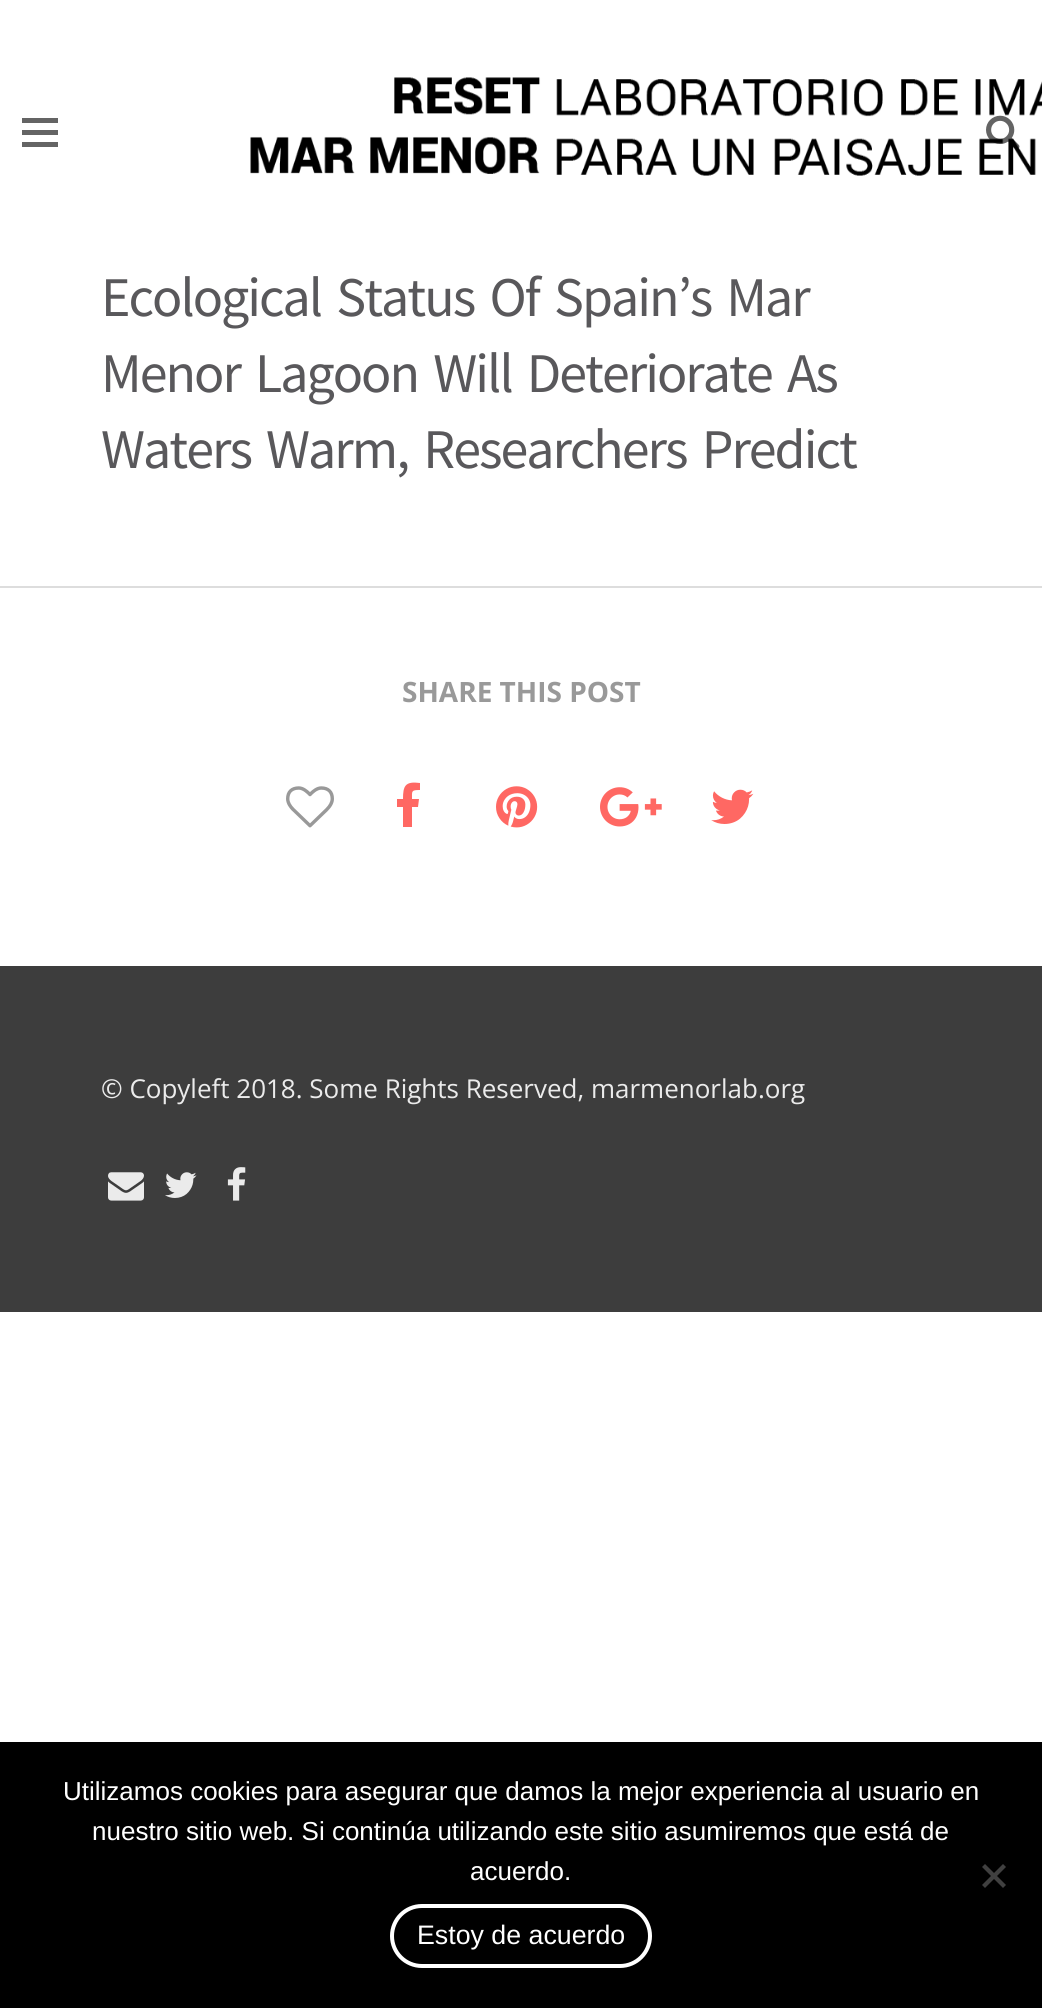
import math
import cairo

surface = cairo.ImageSurface(cairo.FORMAT_RGB24, 1042, 2008)
cr = cairo.Context(surface)
options = cairo.FontOptions()
options.set_hint_metrics(cairo.HINT_METRICS_OFF)
options.set_hint_style(cairo.HINT_STYLE_NONE)
cr.set_font_options(options)
cr.set_miter_limit(4)


def rgb(code):
    cr.set_source_rgb(*(v / 255 for v in bytes.fromhex(code[-6:])))


def tracked(x, y, s, letter, word):
    cr.move_to(x, y)
    for ch in s:
        cr.show_text(ch)
        cr.rel_move_to(letter + word * (ch == ' '), 0)


def rrect(x, y, w, h, r):
    cr.new_sub_path()
    for i, (u, v) in enumerate([(x + w - r, y + h - r), (x + r, y + h - r), (x + r, y + r), (x + w - r, y + r)]):
        cr.arc(u, v, r, i * math.pi / 2, (i + 1) * math.pi / 2)
    cr.close_path()


def image(path, x, y, w, h):
    cr.save()
    cr.set_source_surface(cairo.ImageSurface.create_from_png(path), x, y)
    cr.rectangle(x, y, w, h)
    cr.fill()
    cr.restore()


rgb("#ffffff")
cr.paint()
image("img/2.png", 986, 115, 34, 34)
image("img/1.png", 250, 77, 792, 99)
for x, y, w, h, color in [
    (22, 118, 36, 5, "#646464"),
    (22, 130, 36, 5, "#646464"),
    (22, 142, 36, 5, "#646464"),
    (0, 586, 1042, 2, "#dddddd"),
]:
    rgb(color)
    cr.rectangle(x, y, w, h)
    cr.fill()
image("img/3.png", 286, 786, 48, 42)
rgb("#ff6863")
cr.new_path()
cr.move_to(420, 783)
cr.line_to(420, 790)
cr.curve_to(411, 790, 412, 791, 412, 799)
cr.line_to(419, 799)
cr.line_to(418, 807)
cr.line_to(412, 807)
cr.line_to(412, 827)
cr.line_to(403, 827)
cr.line_to(403, 807)
cr.line_to(397, 807)
cr.line_to(397, 799)
cr.line_to(403, 799)
cr.curve_to(403, 786, 405, 781, 420, 783)
cr.close_path()
cr.fill()
image("img/4.png", 496, 786, 42, 42)
image("img/5.png", 600, 787, 62, 40)
image("img/6.png", 711, 789, 43, 35)
rgb("#3d3d3d")
cr.rectangle(0, 966, 1042, 346)
cr.fill()
image("img/7.png", 108, 1172, 36, 29)
image("img/8.png", 165, 1172, 32, 26)
image("img/9.png", 227, 1167, 19, 34)
rgb("#000000")
cr.rectangle(0, 1742, 1042, 266)
cr.fill()
rgb("#404040")
cr.new_path()
cr.move_to(1003, 1864)
cr.line_to(1006, 1867)
cr.line_to(985, 1888)
cr.line_to(982, 1885)
cr.close_path()
cr.fill()
cr.new_path()
cr.move_to(982, 1867)
cr.line_to(985, 1864)
cr.line_to(1006, 1885)
cr.line_to(1003, 1888)
cr.close_path()
cr.fill()
rrect(392, 1906, 258, 60, 30)
rgb("#ffffff")
cr.set_line_width(4)
cr.stroke()
cr.select_font_face("Source Sans Pro")
cr.set_font_size(56)
rgb("#59585b")
for x, y, s in [
    (101, 316, "Ecological Status Of Spain’s Mar"),
    (101, 392, "Menor Lagoon Will Deteriorate As"),
    (101, 468, "Waters Warm, Researchers Predict"),
]:
    tracked(x, y, s, -2, 6)
cr.select_font_face("Open Sans", cairo.FONT_SLANT_NORMAL, cairo.FONT_WEIGHT_BOLD)
cr.set_font_size(28)
rgb("#999999")
cr.move_to(402, 702)
cr.show_text("SHARE THIS POST")
cr.select_font_face("Open Sans")
cr.set_font_size(26)
rgb("#ebebeb")
cr.move_to(101, 1098)
cr.show_text("© Copyleft 2018. Some Rights Reserved, marmenorlab.org")
cr.select_font_face("Liberation Sans")
rgb("#ffffff")
for x, y, s in [
    (63, 1800, "Utilizamos cookies para asegurar que damos la mejor experiencia al usuario en"),
    (92, 1840, "nuestro sitio web. Si continúa utilizando este sitio asumiremos que está de"),
    (470, 1880, "acuerdo."),
]:
    cr.move_to(x, y)
    cr.show_text(s)
cr.set_font_size(26.75)
cr.move_to(417, 1944)
cr.show_text("Estoy de acuerdo")
surface.write_to_png("page.png")
